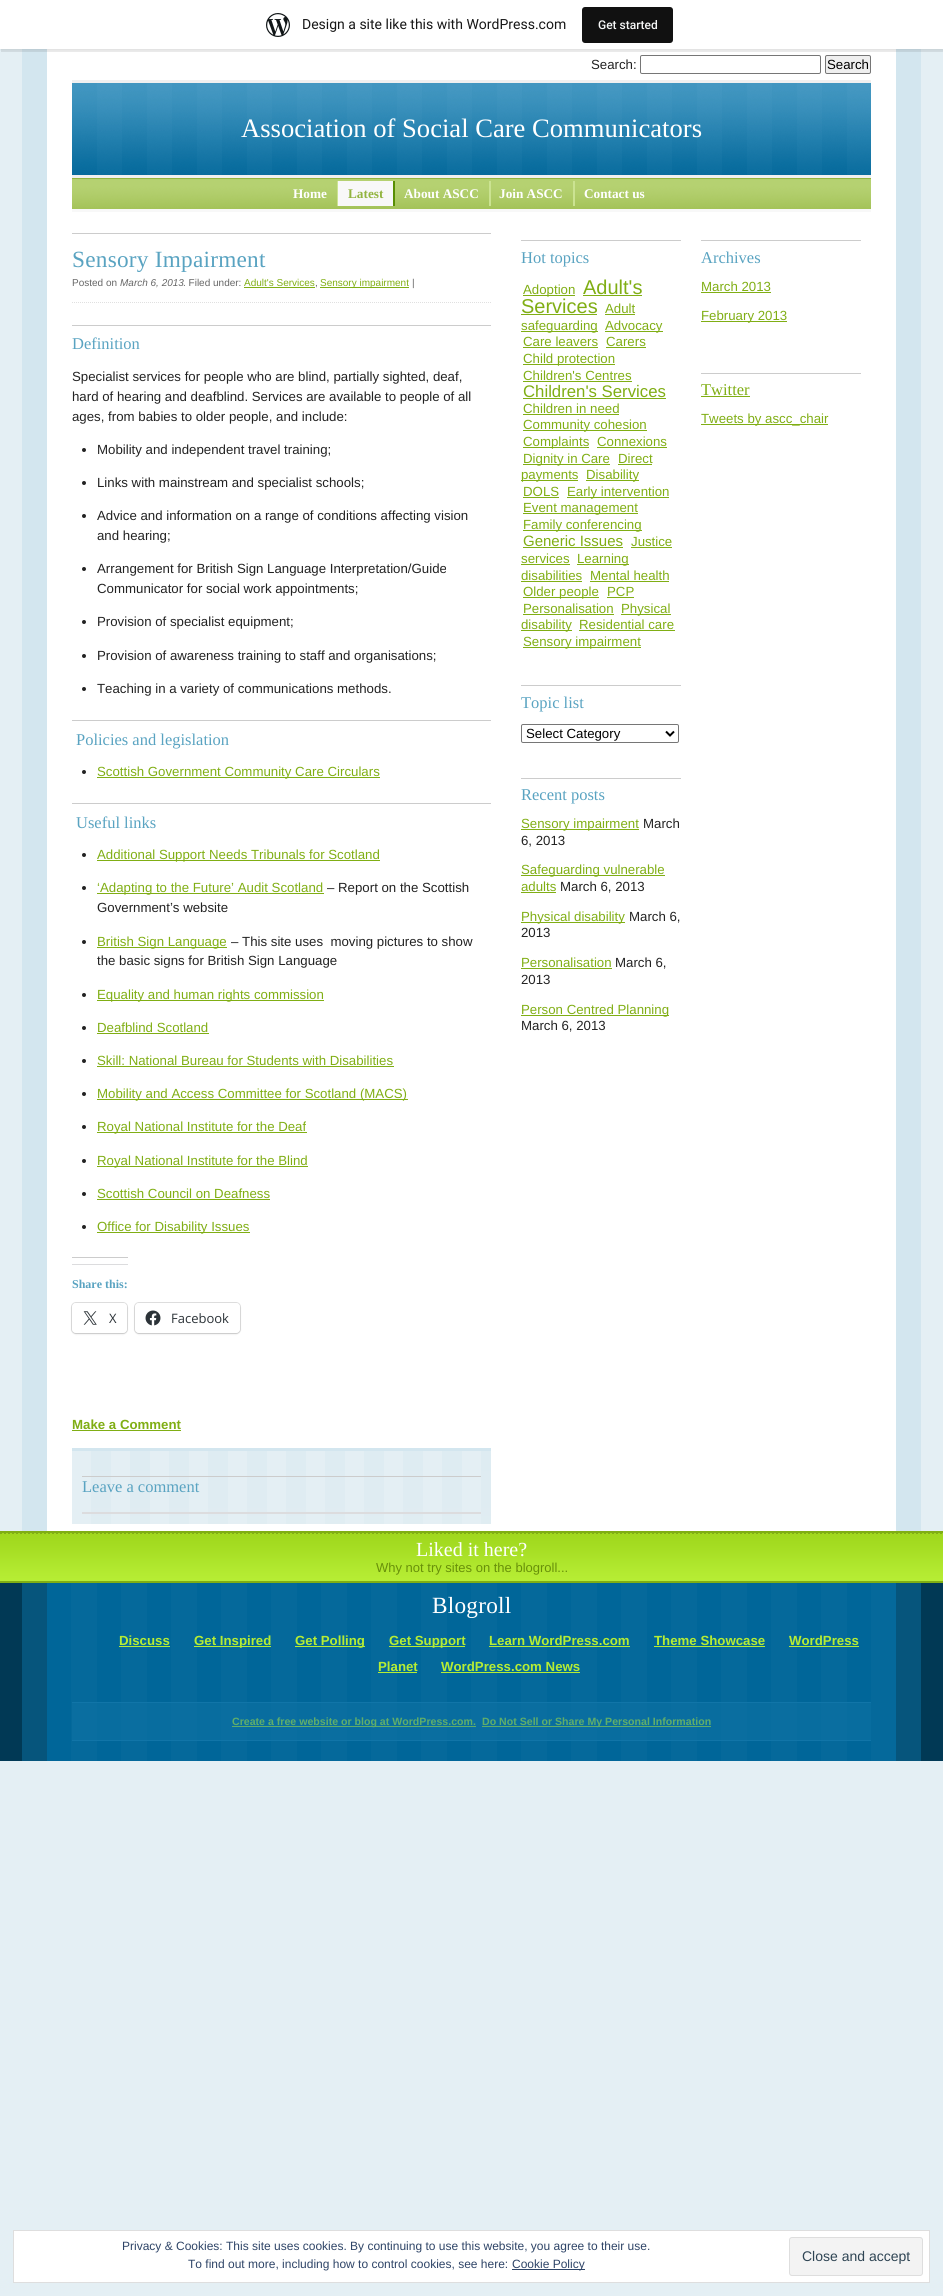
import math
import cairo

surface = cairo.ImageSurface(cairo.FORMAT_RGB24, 943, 2296)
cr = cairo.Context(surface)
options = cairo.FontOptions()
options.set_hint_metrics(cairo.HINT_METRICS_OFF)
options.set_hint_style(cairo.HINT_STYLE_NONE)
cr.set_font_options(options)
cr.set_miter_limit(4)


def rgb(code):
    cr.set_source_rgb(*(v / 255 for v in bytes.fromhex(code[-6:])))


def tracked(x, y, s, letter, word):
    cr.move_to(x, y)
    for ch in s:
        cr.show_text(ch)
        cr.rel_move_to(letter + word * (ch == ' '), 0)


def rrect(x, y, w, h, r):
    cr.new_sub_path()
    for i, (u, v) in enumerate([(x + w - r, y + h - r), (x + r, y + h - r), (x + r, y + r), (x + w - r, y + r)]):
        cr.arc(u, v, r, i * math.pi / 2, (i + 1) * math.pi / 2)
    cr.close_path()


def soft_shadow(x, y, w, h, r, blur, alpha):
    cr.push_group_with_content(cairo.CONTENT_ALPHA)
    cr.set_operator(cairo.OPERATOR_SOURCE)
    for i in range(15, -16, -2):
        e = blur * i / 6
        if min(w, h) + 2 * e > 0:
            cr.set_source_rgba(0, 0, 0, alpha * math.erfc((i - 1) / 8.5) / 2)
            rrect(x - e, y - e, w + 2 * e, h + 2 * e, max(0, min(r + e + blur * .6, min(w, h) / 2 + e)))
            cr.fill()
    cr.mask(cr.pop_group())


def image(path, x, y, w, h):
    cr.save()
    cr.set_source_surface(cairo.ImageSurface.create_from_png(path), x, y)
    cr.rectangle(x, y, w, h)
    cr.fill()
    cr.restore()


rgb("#e4eff4")
cr.paint()
for x, y, w, h, color in [
    (47, 49, 849, 1482, "#ffffff"),
    (896, 49, 25, 1482, "#d3e6ef"),
    (22, 49, 25, 1482, "#d3e6ef"),
]:
    rgb(color)
    cr.rectangle(x, y, w, h)
    cr.fill()
rgb("#000000")
soft_shadow(0, 1, 943, 49, 0, 1, 0.05)
cr.set_source_rgba(0, 0, 0, 0.08)
cr.new_path()
cr.move_to(1, 49)
cr.line_to(1, 52)
cr.line_to(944, 52)
cr.line_to(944, 3)
cr.line_to(943, 3)
cr.line_to(943, 49)
cr.close_path()
cr.fill()
rgb("#ffffff")
cr.rectangle(0, 0, 943, 49)
cr.fill()
image("img/1.png", 266, 13, 24, 24)
rgb("#111111")
rrect(582, 7, 91, 36, 3)
cr.fill()
rrect(640.5, 55.5, 180, 18, 1.5)
rgb("#767676")
cr.set_line_width(1)
cr.stroke()
rgb("#efefef")
rrect(825.5, 55.5, 45, 18, 1.5)
cr.fill_preserve()
rgb("#767676")
cr.stroke()
image("img/2.png", 72, 83, 799, 92)
rgb("#f0f0f0")
cr.rectangle(72, 80, 799, 3)
cr.fill()
cr.rectangle(72, 175, 799, 3)
cr.fill()
image("img/3.png", 72, 179, 799, 30)
for x, y, w, h, color in [
    (72, 178, 799, 1, "#92b43f"),
    (72, 209, 799, 3, "#f8f8f8"),
    (337, 181, 1, 25, "#cbe392"),
    (338, 181, 55, 25, "#f8f8f8"),
    (393, 181, 2, 25, "#588e03"),
    (489, 181, 2, 25, "#cbe392"),
    (573, 181, 2, 25, "#cbe392"),
    (72, 233, 419, 1, "#cccccc"),
]:
    rgb(color)
    cr.rectangle(x, y, w, h)
    cr.fill()
cr.new_path()
cr.move_to(72, 302.5)
cr.line_to(491, 302.5)
rgb("#e0e0e0")
cr.set_dash([1, 1])
cr.stroke()
for x, y, w, h, color in [
    (244, 287, 71, 1, "#80ae14"),
    (320, 287, 89, 1, "#80ae14"),
    (72, 325, 419, 1, "#cccccc"),
]:
    rgb(color)
    cr.rectangle(x, y, w, h)
    cr.fill()
rgb("#222222")
cr.arc(84, 450, 2, 0, 2 * math.pi)
cr.fill()
cr.arc(84, 483, 2, 0, 2 * math.pi)
cr.fill()
cr.arc(84, 516, 2, 0, 2 * math.pi)
cr.fill()
cr.arc(84, 569, 2, 0, 2 * math.pi)
cr.fill()
cr.arc(84, 622, 2, 0, 2 * math.pi)
cr.fill()
cr.arc(84, 656, 2, 0, 2 * math.pi)
cr.fill()
cr.arc(84, 689, 2, 0, 2 * math.pi)
cr.fill()
rgb("#cccccc")
cr.rectangle(72, 720, 419, 1)
cr.fill()
rgb("#222222")
cr.arc(84, 772, 2, 0, 2 * math.pi)
cr.fill()
rgb("#80ae14")
cr.rectangle(97, 777, 283, 1)
cr.fill()
rgb("#cccccc")
cr.rectangle(72, 803, 419, 1)
cr.fill()
rgb("#222222")
cr.arc(84, 855, 2, 0, 2 * math.pi)
cr.fill()
rgb("#80ae14")
cr.rectangle(97, 860, 283, 1)
cr.fill()
rgb("#222222")
cr.arc(84, 888, 2, 0, 2 * math.pi)
cr.fill()
rgb("#80ae14")
cr.rectangle(97, 893, 227, 1)
cr.fill()
rgb("#222222")
cr.arc(84, 942, 2, 0, 2 * math.pi)
cr.fill()
rgb("#80ae14")
cr.rectangle(97, 947, 130, 1)
cr.fill()
rgb("#222222")
cr.arc(84, 995, 2, 0, 2 * math.pi)
cr.fill()
rgb("#80ae14")
cr.rectangle(97, 1000, 227, 1)
cr.fill()
rgb("#222222")
cr.arc(84, 1028, 2, 0, 2 * math.pi)
cr.fill()
rgb("#80ae14")
cr.rectangle(97, 1033, 112, 1)
cr.fill()
rgb("#222222")
cr.arc(84, 1061, 2, 0, 2 * math.pi)
cr.fill()
rgb("#80ae14")
cr.rectangle(97, 1066, 297, 1)
cr.fill()
rgb("#222222")
cr.arc(84, 1094, 2, 0, 2 * math.pi)
cr.fill()
rgb("#80ae14")
cr.rectangle(97, 1099, 311, 1)
cr.fill()
rgb("#222222")
cr.arc(84, 1127, 2, 0, 2 * math.pi)
cr.fill()
rgb("#80ae14")
cr.rectangle(97, 1132, 210, 1)
cr.fill()
rgb("#222222")
cr.arc(84, 1161, 2, 0, 2 * math.pi)
cr.fill()
rgb("#80ae14")
cr.rectangle(97, 1166, 211, 1)
cr.fill()
rgb("#222222")
cr.arc(84, 1194, 2, 0, 2 * math.pi)
cr.fill()
rgb("#80ae14")
cr.rectangle(97, 1199, 173, 1)
cr.fill()
rgb("#222222")
cr.arc(84, 1227, 2, 0, 2 * math.pi)
cr.fill()
for x, y, w, h, color in [
    (97, 1232, 153, 1, "#80ae14"),
    (72, 1257, 56, 1, "#cccccc"),
    (72, 1264, 56, 1, "#dcdcde"),
]:
    rgb(color)
    cr.rectangle(x, y, w, h)
    cr.fill()
rrect(71.5, 1302.5, 56, 31, 4.5)
rgb("#e0e0e0")
cr.set_dash([])
cr.stroke()
rgb("#000000")
soft_shadow(72, 1304, 55, 30, 4, 1, 0.12)
rgb("#ffffff")
rrect(72, 1303, 55, 30, 4)
cr.fill()
image("img/4.png", 83, 1311, 14, 14)
rrect(134.5, 1302.5, 106, 31, 4.5)
rgb("#e0e0e0")
cr.stroke()
rgb("#000000")
soft_shadow(135, 1304, 105, 30, 4, 1, 0.12)
rgb("#ffffff")
rrect(135, 1303, 105, 30, 4)
cr.fill()
image("img/5.png", 145, 1310, 16, 16)
rgb("#80ae14")
cr.rectangle(72, 1430, 109, 1)
cr.fill()
image("img/6.png", 72, 1451, 419, 73)
for x, y, w, h, color in [
    (72, 1448, 419, 3, "#d3e6ef"),
    (82, 1476, 399, 1, "#cccccc"),
    (82, 1512, 399, 2, "#dcdcde"),
    (521, 240, 160, 1, "#cccccc"),
    (523, 295, 52, 1, "#80ae14"),
    (583, 295, 59, 1, "#80ae14"),
    (521, 314, 76, 1, "#80ae14"),
    (605, 314, 30, 1, "#80ae14"),
    (521, 331, 77, 1, "#80ae14"),
    (605, 331, 58, 1, "#80ae14"),
    (523, 347, 75, 1, "#80ae14"),
    (606, 347, 40, 1, "#80ae14"),
    (523, 364, 92, 1, "#80ae14"),
    (523, 381, 109, 1, "#80ae14"),
    (523, 398, 143, 1, "#80ae14"),
    (523, 414, 96, 1, "#80ae14"),
    (523, 430, 124, 1, "#80ae14"),
    (523, 447, 66, 1, "#80ae14"),
    (597, 447, 70, 1, "#80ae14"),
    (523, 464, 87, 1, "#80ae14"),
    (618, 464, 34, 1, "#80ae14"),
    (521, 480, 57, 1, "#80ae14"),
    (586, 480, 53, 1, "#80ae14"),
    (523, 497, 36, 1, "#80ae14"),
    (567, 497, 102, 1, "#80ae14"),
    (523, 513, 115, 1, "#80ae14"),
    (523, 530, 119, 1, "#80ae14"),
    (523, 547, 100, 1, "#80ae14"),
    (631, 547, 41, 1, "#80ae14"),
    (521, 564, 49, 1, "#80ae14"),
    (577, 564, 52, 1, "#80ae14"),
    (521, 581, 61, 1, "#80ae14"),
    (590, 581, 79, 1, "#80ae14"),
    (523, 597, 76, 1, "#80ae14"),
    (607, 597, 27, 1, "#80ae14"),
    (523, 614, 91, 1, "#80ae14"),
    (621, 614, 50, 1, "#80ae14"),
    (521, 630, 51, 1, "#80ae14"),
    (579, 630, 96, 1, "#80ae14"),
    (523, 647, 118, 1, "#80ae14"),
    (521, 685, 160, 1, "#cccccc"),
]:
    rgb(color)
    cr.rectangle(x, y, w, h)
    cr.fill()
rrect(521.5, 724.5, 157, 18, 1.5)
rgb("#767676")
cr.stroke()
cr.new_path()
cr.move_to(666, 731.5)
cr.line_to(670, 735.5)
cr.line_to(674, 731.5)
rgb("#000000")
cr.set_line_width(2)
cr.stroke()
for x, y, w, h, color in [
    (521, 778, 160, 1, "#cccccc"),
    (521, 829, 118, 1, "#80ae14"),
    (521, 875, 144, 1, "#80ae14"),
    (521, 892, 35, 1, "#80ae14"),
    (521, 922, 104, 1, "#80ae14"),
    (521, 968, 91, 1, "#80ae14"),
    (521, 1015, 148, 1, "#80ae14"),
    (701, 240, 160, 1, "#cccccc"),
    (701, 292, 70, 1, "#80ae14"),
    (701, 321, 86, 1, "#80ae14"),
    (701, 373, 160, 1, "#cccccc"),
    (701, 396, 49, 1, "#80ae14"),
    (701, 424, 127, 1, "#80ae14"),
]:
    rgb(color)
    cr.rectangle(x, y, w, h)
    cr.fill()
image("img/7.png", 0, 1533, 943, 48)
for x, y, w, h, color in [
    (0, 1531, 943, 2, "#80ae14"),
    (0, 1581, 943, 2, "#80ae14"),
    (0, 1583, 943, 178, "#013955"),
]:
    rgb(color)
    cr.rectangle(x, y, w, h)
    cr.fill()
image("img/8.png", 47, 1583, 849, 178)
rgb("#06557c")
cr.rectangle(896, 1583, 25, 178)
cr.rectangle(22, 1583, 25, 178)
cr.fill()
rgb("#b6ed34")
cr.rectangle(119, 1646, 51, 1)
cr.rectangle(194, 1646, 77, 1)
cr.rectangle(295, 1646, 70, 1)
cr.rectangle(389, 1646, 76, 1)
cr.rectangle(489, 1646, 141, 1)
cr.rectangle(654, 1646, 111, 1)
cr.rectangle(789, 1646, 70, 1)
cr.rectangle(378, 1672, 39, 1)
cr.rectangle(441, 1672, 139, 1)
cr.fill()
cr.set_source_rgba(0.067, 0.455, 0.651, 0.5)
cr.rectangle(72, 1703, 799, 37)
cr.fill()
rgb("#1175a8")
cr.rectangle(72, 1702, 799, 1)
cr.rectangle(72, 1740, 799, 1)
cr.fill()
rgb("#60ad6a")
cr.rectangle(232, 1726, 244, 1)
cr.rectangle(482, 1726, 229, 1)
cr.fill()
rgb("#ffffff")
cr.rectangle(13.5, 2230.5, 916, 52)
cr.fill_preserve()
rgb("#dedede")
cr.set_line_width(1)
cr.stroke()
rgb("#2e4467")
cr.rectangle(512, 2269, 73, 1)
cr.fill()
rgb("#f3f3f3")
rrect(789.5, 2237.5, 133, 38, 2.5)
cr.fill_preserve()
rgb("#dedede")
cr.stroke()
cr.select_font_face("Roboto")
cr.set_font_size(14)
rgb("#171717")
cr.move_to(302, 29)
cr.show_text("Design a site like this with WordPress.com")
cr.select_font_face("Roboto Medium")
cr.set_font_size(12)
rgb("#f6f7f7")
cr.move_to(598, 29)
cr.show_text("Get started")
cr.select_font_face("Liberation Sans")
cr.set_font_size(13.25)
rgb("#222222")
cr.move_to(591, 69)
cr.show_text("Search:")
rgb("#000000")
cr.move_to(827, 69)
cr.show_text("Search")
cr.select_font_face("Liberation Serif")
cr.set_font_size(26.6)
rgb("#ffffff")
cr.move_to(241, 137)
cr.show_text("Association of Social Care Communicators")
cr.select_font_face("Liberation Serif", cairo.FONT_SLANT_NORMAL, cairo.FONT_WEIGHT_BOLD)
cr.set_font_size(13.25)
cr.move_to(293, 198)
cr.show_text("Home")
rgb("#92b43f")
cr.move_to(348, 198)
cr.show_text("Latest")
rgb("#ffffff")
for x, y, s in [
    (404, 198, "About ASCC"),
    (499, 198, "Join ASCC"),
    (584, 198, "Contact us"),
]:
    cr.move_to(x, y)
    cr.show_text(s)
cr.select_font_face("Liberation Serif")
cr.set_font_size(23.25)
rgb("#59a3c1")
tracked(72, 267, "Sensory Impairment", 0.25, 0)
cr.select_font_face("Liberation Sans")
cr.set_font_size(10)
rgb("#666666")
cr.move_to(72, 286)
cr.show_text("Posted on")
cr.select_font_face("Liberation Sans", cairo.FONT_SLANT_ITALIC)
cr.move_to(120, 286)
cr.show_text("March 6, 2013")
cr.select_font_face("Liberation Sans")
cr.move_to(183, 286)
cr.show_text(". Filed under:")
rgb("#80ae14")
cr.move_to(244, 286)
cr.show_text("Adult's Services")
rgb("#666666")
cr.move_to(315, 286)
cr.show_text(",")
rgb("#80ae14")
cr.move_to(320, 286)
cr.show_text("Sensory impairment")
rgb("#666666")
cr.move_to(412, 286)
cr.show_text("|")
cr.select_font_face("Liberation Serif")
cr.set_font_size(16.5)
rgb("#59a3c1")
cr.move_to(72, 349)
cr.show_text("Definition")
cr.select_font_face("Liberation Sans")
cr.set_font_size(13.25)
rgb("#222222")
for x, y, s in [
    (72, 381, "Specialist services for people who are blind, partially sighted, deaf,"),
    (72, 401, "hard of hearing and deafblind. Services are available to people of all"),
    (72, 421, "ages, from babies to older people, and include:"),
    (97, 454, "Mobility and independent travel training;"),
    (97, 487, "Links with mainstream and specialist schools;"),
    (97, 520, "Advice and information on a range of conditions affecting vision"),
    (97, 540, "and hearing;"),
    (97, 573, "Arrangement for British Sign Language Interpretation/Guide"),
    (97, 593, "Communicator for social work appointments;"),
    (97, 626, "Provision of specialist equipment;"),
    (97, 660, "Provision of awareness training to staff and organisations;"),
    (97, 693, "Teaching in a variety of communications methods."),
]:
    cr.move_to(x, y)
    cr.show_text(s)
cr.select_font_face("Liberation Serif")
cr.set_font_size(16.5)
rgb("#59a3c1")
cr.move_to(76, 745)
cr.show_text("Policies and legislation")
cr.select_font_face("Liberation Sans")
cr.set_font_size(13.25)
rgb("#80ae14")
cr.move_to(97, 776)
cr.show_text("Scottish Government Community Care Circulars")
cr.select_font_face("Liberation Serif")
cr.set_font_size(16.5)
rgb("#59a3c1")
cr.move_to(76, 828)
cr.show_text("Useful links")
cr.select_font_face("Liberation Sans")
cr.set_font_size(13.25)
rgb("#80ae14")
cr.move_to(97, 859)
cr.show_text("Additional Support Needs Tribunals for Scotland")
cr.move_to(97, 892)
cr.show_text("‘Adapting to the Future’ Audit Scotland")
rgb("#222222")
cr.move_to(327, 892)
cr.show_text("– Report on the Scottish")
cr.move_to(97, 912)
cr.show_text("Government’s website")
rgb("#80ae14")
cr.move_to(97, 946)
cr.show_text("British Sign Language")
rgb("#222222")
cr.move_to(231, 946)
cr.show_text("– This site uses  moving pictures to show")
cr.move_to(97, 965)
cr.show_text("the basic signs for British Sign Language")
rgb("#80ae14")
for x, y, s in [
    (97, 999, "Equality and human rights commission"),
    (97, 1032, "Deafblind Scotland"),
    (97, 1065, "Skill: National Bureau for Students with Disabilities"),
    (97, 1098, "Mobility and Access Committee for Scotland (MACS)"),
    (97, 1131, "Royal National Institute for the Deaf"),
    (97, 1165, "Royal National Institute for the Blind"),
    (97, 1198, "Scottish Council on Deafness"),
    (97, 1231, "Office for Disability Issues"),
]:
    cr.move_to(x, y)
    cr.show_text(s)
cr.select_font_face("Liberation Serif", cairo.FONT_SLANT_NORMAL, cairo.FONT_WEIGHT_BOLD)
cr.set_font_size(12)
rgb("#59a3c1")
cr.move_to(72, 1288)
cr.show_text("Share this:")
cr.select_font_face("Open Sans")
cr.set_font_size(13)
rgb("#2c3338")
cr.move_to(109, 1323)
cr.show_text("X")
cr.move_to(171, 1323)
cr.show_text("Facebook")
cr.select_font_face("Liberation Sans", cairo.FONT_SLANT_NORMAL, cairo.FONT_WEIGHT_BOLD)
cr.set_font_size(13.25)
rgb("#80ae14")
cr.move_to(72, 1429)
cr.show_text("Make a Comment")
cr.select_font_face("Liberation Serif")
cr.set_font_size(16.5)
rgb("#59a3c1")
cr.move_to(82, 1492)
cr.show_text("Leave a comment")
cr.move_to(521, 263)
cr.show_text("Hot topics")
cr.select_font_face("Liberation Sans")
cr.set_font_size(13.25)
rgb("#80ae14")
cr.move_to(523, 294)
cr.show_text("Adoption")
cr.set_font_size(20)
cr.move_to(583, 294)
cr.show_text("Adult's")
cr.move_to(521, 313)
cr.show_text("Services")
cr.set_font_size(13.25)
for x, y, s in [
    (605, 313, "Adult"),
    (521, 330, "safeguarding"),
    (605, 330, "Advocacy"),
    (523, 346, "Care leavers"),
    (606, 346, "Carers"),
    (523, 363, "Child protection"),
    (523, 380, "Children's Centres"),
]:
    cr.move_to(x, y)
    cr.show_text(s)
cr.set_font_size(16.75)
cr.move_to(523, 397)
cr.show_text("Children's Services")
cr.set_font_size(13.25)
for x, y, s in [
    (523, 413, "Children in need"),
    (523, 429, "Community cohesion"),
    (523, 446, "Complaints"),
    (597, 446, "Connexions"),
    (523, 463, "Dignity in Care"),
    (618, 463, "Direct"),
    (521, 479, "payments"),
    (586, 479, "Disability"),
    (523, 496, "DOLS"),
    (567, 496, "Early intervention"),
    (523, 512, "Event management"),
    (523, 529, "Family conferencing"),
]:
    cr.move_to(x, y)
    cr.show_text(s)
cr.set_font_size(15)
cr.move_to(523, 546)
cr.show_text("Generic Issues")
cr.set_font_size(13.25)
for x, y, s in [
    (631, 546, "Justice"),
    (521, 563, "services"),
    (577, 563, "Learning"),
    (521, 580, "disabilities"),
    (590, 580, "Mental health"),
    (523, 596, "Older people"),
    (607, 596, "PCP"),
    (523, 613, "Personalisation"),
    (621, 613, "Physical"),
    (521, 629, "disability"),
    (579, 629, "Residential care"),
    (523, 646, "Sensory impairment"),
]:
    cr.move_to(x, y)
    cr.show_text(s)
cr.select_font_face("Liberation Serif")
cr.set_font_size(16.5)
rgb("#59a3c1")
cr.move_to(521, 708)
cr.show_text("Topic list")
cr.select_font_face("Liberation Sans")
cr.set_font_size(13.25)
rgb("#000000")
cr.move_to(526, 738)
cr.show_text("Select Category")
cr.select_font_face("Liberation Serif")
cr.set_font_size(16.5)
rgb("#59a3c1")
cr.move_to(521, 800)
cr.show_text("Recent posts")
cr.select_font_face("Liberation Sans")
cr.set_font_size(13.25)
rgb("#80ae14")
cr.move_to(521, 828)
cr.show_text("Sensory impairment")
rgb("#222222")
cr.move_to(643, 828)
cr.show_text("March")
cr.move_to(521, 845)
cr.show_text("6, 2013")
rgb("#80ae14")
cr.move_to(521, 874)
cr.show_text("Safeguarding vulnerable")
cr.move_to(521, 891)
cr.show_text("adults")
rgb("#222222")
cr.move_to(560, 891)
cr.show_text("March 6, 2013")
rgb("#80ae14")
cr.move_to(521, 921)
cr.show_text("Physical disability")
rgb("#222222")
cr.move_to(629, 921)
cr.show_text("March 6,")
cr.move_to(521, 937)
cr.show_text("2013")
rgb("#80ae14")
cr.move_to(521, 967)
cr.show_text("Personalisation")
rgb("#222222")
cr.move_to(615, 967)
cr.show_text("March 6,")
cr.move_to(521, 984)
cr.show_text("2013")
rgb("#80ae14")
cr.move_to(521, 1014)
cr.show_text("Person Centred Planning")
rgb("#222222")
cr.move_to(521, 1030)
cr.show_text("March 6, 2013")
cr.select_font_face("Liberation Serif")
cr.set_font_size(16.5)
rgb("#59a3c1")
cr.move_to(701, 263)
cr.show_text("Archives")
cr.select_font_face("Liberation Sans")
cr.set_font_size(13.25)
rgb("#80ae14")
cr.move_to(701, 291)
cr.show_text("March 2013")
cr.move_to(701, 320)
cr.show_text("February 2013")
cr.select_font_face("Liberation Serif")
cr.set_font_size(16.5)
cr.move_to(701, 395)
cr.show_text("Twitter")
cr.select_font_face("Liberation Sans")
cr.set_font_size(13.25)
cr.move_to(701, 423)
cr.show_text("Tweets by ascc_chair")
cr.select_font_face("Liberation Serif")
cr.set_font_size(20)
rgb("#ffffff")
cr.move_to(416, 1556)
cr.show_text("Liked it here?")
cr.select_font_face("Liberation Sans")
cr.set_font_size(13)
rgb("#689009")
cr.move_to(376, 1572)
cr.show_text("Why not try sites on the blogroll...")
cr.select_font_face("Liberation Serif")
cr.set_font_size(23.25)
rgb("#ffffff")
tracked(432, 1613, "Blogroll", 0.25, 0)
cr.select_font_face("Liberation Sans", cairo.FONT_SLANT_NORMAL, cairo.FONT_WEIGHT_BOLD)
cr.set_font_size(13.25)
rgb("#b6ed34")
for x, y, s in [
    (119, 1645, "Discuss"),
    (194, 1645, "Get Inspired"),
    (295, 1645, "Get Polling"),
    (389, 1645, "Get Support"),
    (489, 1645, "Learn WordPress.com"),
    (654, 1645, "Theme Showcase"),
    (789, 1645, "WordPress"),
    (378, 1671, "Planet"),
    (441, 1671, "WordPress.com News"),
]:
    cr.move_to(x, y)
    cr.show_text(s)
cr.set_font_size(10.6)
rgb("#60ae6a")
cr.move_to(232, 1725)
cr.show_text("Create a free website or blog at WordPress.com.")
cr.move_to(482, 1725)
cr.show_text("Do Not Sell or Share My Personal Information")
cr.select_font_face("Liberation Sans")
cr.set_font_size(12)
rgb("#2e4467")
for x, y, s in [
    (122, 2250, "Privacy & Cookies: This site uses cookies. By continuing to use this website, you agree to their use."),
    (188, 2268, "To find out more, including how to control cookies, see here:"),
    (512, 2268, "Cookie Policy"),
]:
    cr.move_to(x, y)
    cr.show_text(s)
cr.set_font_size(14)
rgb("#2e4453")
cr.move_to(802, 2261)
cr.show_text("Close and accept")
surface.write_to_png("page.png")
